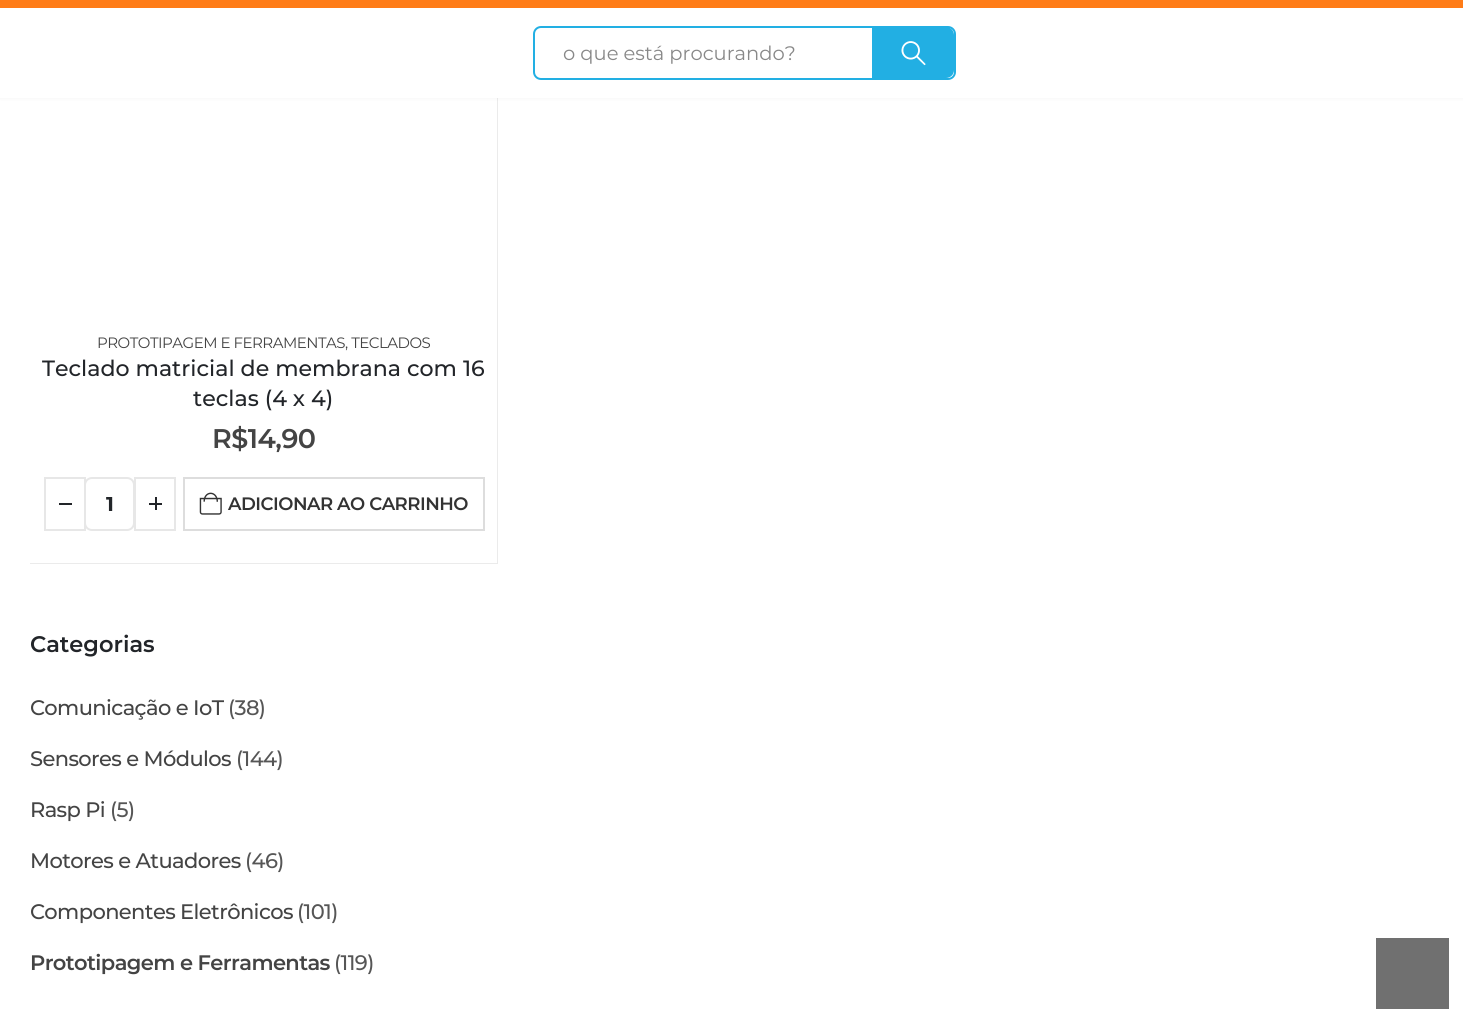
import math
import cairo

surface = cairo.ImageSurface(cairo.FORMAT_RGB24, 1463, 1009)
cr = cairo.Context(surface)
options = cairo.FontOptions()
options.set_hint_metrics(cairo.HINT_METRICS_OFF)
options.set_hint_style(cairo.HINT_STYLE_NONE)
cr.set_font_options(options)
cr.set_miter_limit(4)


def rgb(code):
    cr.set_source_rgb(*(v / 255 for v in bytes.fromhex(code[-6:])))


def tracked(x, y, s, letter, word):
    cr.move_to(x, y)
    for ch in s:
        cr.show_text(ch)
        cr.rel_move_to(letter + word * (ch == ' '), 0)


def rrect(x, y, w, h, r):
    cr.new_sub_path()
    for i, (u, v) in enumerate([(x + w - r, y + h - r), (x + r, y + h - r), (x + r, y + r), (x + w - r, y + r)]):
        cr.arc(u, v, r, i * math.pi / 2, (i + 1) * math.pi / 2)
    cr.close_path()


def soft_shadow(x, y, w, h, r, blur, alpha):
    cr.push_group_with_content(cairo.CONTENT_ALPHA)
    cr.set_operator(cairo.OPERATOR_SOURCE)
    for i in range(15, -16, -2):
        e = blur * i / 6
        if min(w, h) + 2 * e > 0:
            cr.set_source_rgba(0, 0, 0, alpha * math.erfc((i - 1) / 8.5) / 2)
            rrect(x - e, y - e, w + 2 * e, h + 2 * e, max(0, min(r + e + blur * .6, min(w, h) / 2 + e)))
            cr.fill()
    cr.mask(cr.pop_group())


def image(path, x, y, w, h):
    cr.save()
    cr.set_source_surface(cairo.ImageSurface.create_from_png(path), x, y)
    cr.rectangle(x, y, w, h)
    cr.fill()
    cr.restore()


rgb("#ffffff")
cr.paint()
rgb("#ebebeb")
cr.new_path()
cr.move_to(498, -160)
cr.line_to(498, 564)
cr.line_to(496, 562)
cr.line_to(496, -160)
cr.close_path()
cr.fill()
cr.set_source_rgba(0, 0, 0, 0.08)
cr.new_path()
cr.move_to(498, 564)
cr.line_to(30, 564)
cr.line_to(30, 562)
cr.line_to(496, 562)
cr.close_path()
cr.fill()
rgb("#ffffff")
cr.rectangle(30, 98, 467, 465)
cr.fill()
rgb("#000000")
soft_shadow(0, 0, 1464, 98, 0, 2, 0.06)
rgb("#ffffff")
cr.rectangle(0, 8, 1463, 90)
cr.fill()
rgb("#ff7c17")
cr.rectangle(0, 0, 1463, 8)
cr.fill()
rrect(534, 27, 421, 52, 7)
rgb("#22afe3")
cr.stroke()
cr.new_path()
cr.move_to(872, 27)
cr.line_to(946, 27)
cr.curve_to(950.5, 27, 954, 30.5, 954, 35)
cr.line_to(954, 70)
cr.curve_to(954, 74.5, 950.5, 78, 946, 78)
cr.line_to(872, 78)
cr.close_path()
cr.fill()
image("img/1.png", 901, 41, 25, 25)
rrect(85, 478, 49, 52, 7)
rgb("#e7e7e7")
cr.stroke()
cr.rectangle(45, 478, 40, 52)
cr.stroke()
rgb("#222529")
cr.rectangle(59, 503, 13, 2)
cr.fill()
cr.rectangle(135, 478, 40, 52)
rgb("#e7e7e7")
cr.stroke()
rgb("#222529")
cr.rectangle(149, 503, 13, 2)
cr.fill()
cr.rectangle(155, 497, 2, 13)
cr.fill()
cr.rectangle(184, 478, 300, 52)
rgb("#dddddd")
cr.stroke()
image("img/2.png", 199, 492, 23, 23)
rgb("#707070")
cr.rectangle(1376, 938, 73, 71)
cr.fill()
cr.select_font_face("Montserrat")
cr.set_font_size(19.5)
rgb("#888888")
cr.move_to(563, 60)
cr.show_text("o que está procurando?")
cr.set_font_size(15)
rgb("#444444")
tracked(97, 348, "PROTOTIPAGEM E FERRAMENTAS, TECLADOS", -0.5, 0)
cr.select_font_face("Montserrat Medium")
cr.set_font_size(22.1)
rgb("#222529")
cr.move_to(42, 376)
cr.show_text("Teclado matricial de membrana com 16")
cr.move_to(193, 406)
cr.show_text("teclas (4 x 4)")
cr.select_font_face("Montserrat SemiBold")
cr.set_font_size(27)
rgb("#444444")
tracked(212, 448, "R$14,90", -0.5, 0)
cr.select_font_face("Montserrat", cairo.FONT_SLANT_NORMAL, cairo.FONT_WEIGHT_BOLD)
cr.set_font_size(20)
rgb("#222529")
cr.move_to(106, 511)
cr.show_text("1")
cr.select_font_face("Montserrat SemiBold")
cr.set_font_size(18)
rgb("#333333")
tracked(228, 510, "ADICIONAR AO CARRINHO", -0.5, 0)
cr.set_font_size(22.5)
rgb("#222529")
cr.move_to(30, 652)
cr.show_text("Categorias")
cr.select_font_face("Montserrat Medium")
cr.set_font_size(21)
rgb("#444444")
tracked(30, 715, "Comunicação e IoT", -0.6, 0)
rgb("#565656")
tracked(228, 715, "(38)", -0.6, 0)
rgb("#444444")
tracked(30, 766, "Sensores e Módulos", -0.6, 0)
rgb("#565656")
tracked(236, 766, "(144)", -0.6, 0)
rgb("#444444")
tracked(30, 817, "Rasp Pi", -0.6, 0)
rgb("#565656")
tracked(110, 817, "(5)", -0.6, 0)
rgb("#444444")
tracked(30, 868, "Motores e Atuadores", -0.6, 0)
rgb("#565656")
tracked(245, 868, "(46)", -0.6, 0)
rgb("#444444")
tracked(30, 919, "Componentes Eletrônicos", -0.6, 0)
rgb("#565656")
tracked(297, 919, "(101)", -0.6, 0)
cr.select_font_face("Montserrat SemiBold")
rgb("#444444")
tracked(30, 970, "Prototipagem e Ferramentas", -0.6, 0)
cr.select_font_face("Montserrat Medium")
rgb("#565656")
tracked(334, 970, "(119)", -0.6, 0)
surface.write_to_png("page.png")
